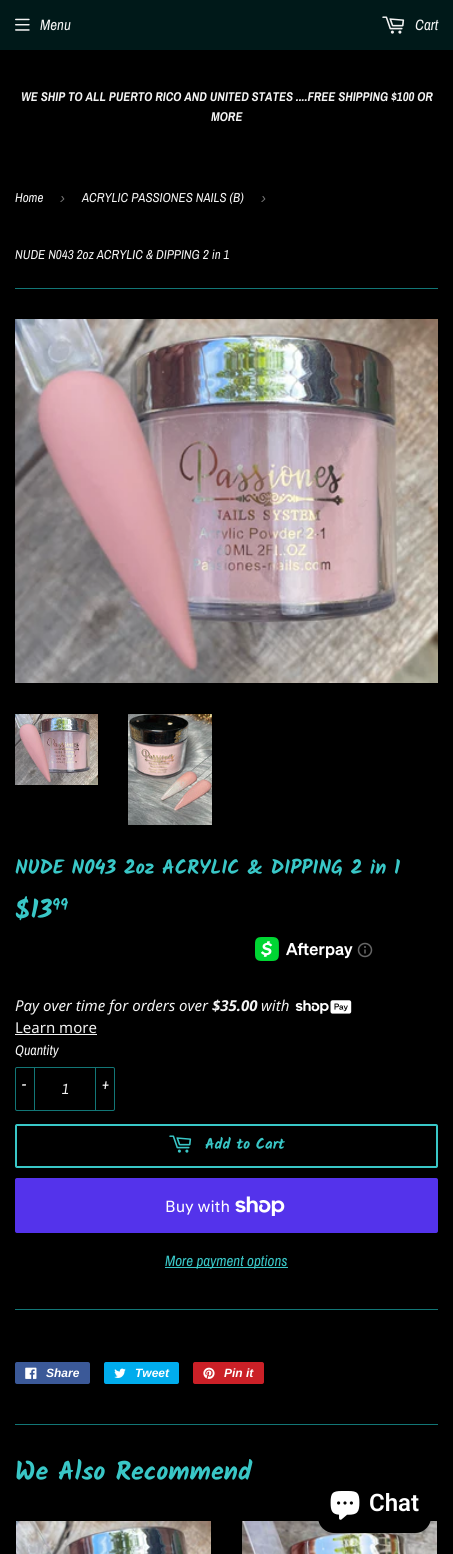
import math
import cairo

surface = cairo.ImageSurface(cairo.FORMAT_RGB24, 453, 1554)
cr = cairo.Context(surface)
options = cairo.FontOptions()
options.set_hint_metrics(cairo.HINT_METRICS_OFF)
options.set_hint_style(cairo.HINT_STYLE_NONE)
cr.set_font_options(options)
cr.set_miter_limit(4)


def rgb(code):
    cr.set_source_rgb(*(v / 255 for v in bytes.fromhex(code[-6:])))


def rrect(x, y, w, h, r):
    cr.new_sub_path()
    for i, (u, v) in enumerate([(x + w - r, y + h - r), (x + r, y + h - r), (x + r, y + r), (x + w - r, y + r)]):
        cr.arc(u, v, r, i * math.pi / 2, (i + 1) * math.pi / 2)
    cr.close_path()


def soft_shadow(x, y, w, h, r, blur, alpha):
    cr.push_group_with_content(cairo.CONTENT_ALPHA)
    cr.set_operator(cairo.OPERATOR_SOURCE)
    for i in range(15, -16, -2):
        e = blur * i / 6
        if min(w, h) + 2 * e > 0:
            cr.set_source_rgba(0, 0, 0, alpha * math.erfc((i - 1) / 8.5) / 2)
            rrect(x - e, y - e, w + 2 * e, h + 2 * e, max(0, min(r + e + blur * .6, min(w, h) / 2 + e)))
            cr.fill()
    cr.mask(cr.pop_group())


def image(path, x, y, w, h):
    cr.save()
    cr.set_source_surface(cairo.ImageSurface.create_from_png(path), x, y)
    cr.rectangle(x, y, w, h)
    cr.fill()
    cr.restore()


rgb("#000000")
cr.paint()
rgb("#001919")
cr.rectangle(0, 0, 453, 50)
cr.fill()
image("img/1.png", 15, 18, 15, 13)
image("img/2.png", 382, 16, 23, 18)
rgb("#127676")
cr.rectangle(15, 288, 423, 1)
cr.fill()
image("img/3.png", 15, 319, 423, 364)
image("img/4.png", 15, 714, 83, 71)
image("img/5.png", 128, 714, 84, 111)
image("img/6.png", 255, 937, 98, 24)
image("img/7.png", 357, 942, 16, 16)
image("img/8.png", 295, 1000, 57, 14)
rgb("#f3f3f3")
cr.rectangle(15, 1034, 82, 1)
cr.fill()
rrect(15.5, 1067.5, 99, 43, 1.5)
rgb("#127676")
cr.set_line_width(1)
cr.stroke()
cr.rectangle(34, 1067, 1, 44)
cr.fill()
cr.rectangle(95, 1067, 1, 44)
cr.fill()
rrect(16, 1125, 421, 42, 1)
rgb("#39c7c7")
cr.set_line_width(2)
cr.stroke()
image("img/9.png", 169, 1135, 23, 18)
rgb("#5433eb")
rrect(15, 1178, 423, 55, 2)
cr.fill()
image("img/10.png", 235, 1196, 50, 20)
rgb("#39c7c7")
cr.rectangle(165, 1267, 123, 1)
cr.fill()
rgb("#127676")
cr.rectangle(15, 1309, 423, 1)
cr.fill()
rgb("#3b5998")
rrect(15, 1362, 75, 22, 2)
cr.fill()
image("img/11.png", 25, 1367, 12, 12)
rgb("#00aced")
rrect(104, 1362, 75, 22, 2)
cr.fill()
image("img/12.png", 114, 1368, 12, 10)
rgb("#cb2027")
rrect(193, 1362, 71, 22, 2)
cr.fill()
image("img/13.png", 203, 1367, 12, 12)
rgb("#127676")
cr.rectangle(15, 1424, 423, 1)
cr.fill()
image("img/14.png", 16, 1521, 195, 33)
image("img/15.png", 242, 1521, 195, 33)
rgb("#000000")
soft_shadow(318, 1473, 113, 60, 16, 2.5, 0.15)
rgb("#000000")
rrect(318, 1473, 113, 60, 16)
cr.fill()
image("img/16.png", 330, 1491, 30, 29)
cr.select_font_face("Archivo Narrow", cairo.FONT_SLANT_ITALIC)
cr.set_font_size(15)
rgb("#f3f3f3")
cr.move_to(40, 30)
cr.show_text("Menu")
cr.move_to(415, 30)
cr.show_text("Cart")
cr.select_font_face("Archivo Narrow", cairo.FONT_SLANT_ITALIC, cairo.FONT_WEIGHT_BOLD)
cr.set_font_size(12.75)
cr.move_to(21, 101)
cr.show_text("WE SHIP TO ALL PUERTO RICO AND UNITED STATES ....FREE SHIPPING $100 OR")
cr.move_to(211, 121)
cr.show_text("MORE")
cr.select_font_face("Archivo Narrow", cairo.FONT_SLANT_ITALIC)
cr.set_font_size(13)
cr.move_to(15, 202)
cr.show_text("Home")
cr.select_font_face("Liberation Sans", cairo.FONT_SLANT_ITALIC)
cr.set_font_size(15)
rgb("#767676")
cr.move_to(60, 203)
cr.show_text("›")
cr.select_font_face("Archivo Narrow", cairo.FONT_SLANT_ITALIC)
cr.set_font_size(13)
rgb("#f3f3f3")
cr.move_to(82, 202)
cr.show_text("ACRYLIC PASSIONES NAILS (B)")
cr.select_font_face("Liberation Sans", cairo.FONT_SLANT_ITALIC)
cr.set_font_size(15)
rgb("#767676")
cr.move_to(261, 203)
cr.show_text("›")
cr.select_font_face("Archivo Narrow", cairo.FONT_SLANT_ITALIC)
cr.set_font_size(13)
rgb("#f3f3f3")
cr.move_to(15, 259)
cr.show_text("NUDE N043 2oz ACRYLIC & DIPPING 2 in 1")
cr.select_font_face("Kalam", cairo.FONT_SLANT_NORMAL, cairo.FONT_WEIGHT_BOLD)
cr.set_font_size(20)
rgb("#39c7c7")
cr.move_to(15, 874)
cr.show_text("NUDE N043 2oz ACRYLIC & DIPPING 2 in 1")
cr.set_font_size(26)
cr.move_to(15, 918)
cr.show_text("$13")
cr.set_font_size(16)
cr.move_to(52, 910)
cr.show_text("99")
cr.select_font_face("Noto Sans", cairo.FONT_SLANT_ITALIC)
cr.set_font_size(15)
rgb("#f3f3f3")
cr.move_to(15, 1011)
cr.show_text("Pay over time for orders over")
cr.select_font_face("Noto Sans", cairo.FONT_SLANT_ITALIC, cairo.FONT_WEIGHT_BOLD)
cr.move_to(212, 1011)
cr.show_text("$35.00")
cr.select_font_face("Noto Sans", cairo.FONT_SLANT_ITALIC)
cr.move_to(261, 1011)
cr.show_text("with")
cr.select_font_face("Noto Sans")
cr.move_to(15, 1033)
cr.show_text("Learn more")
cr.select_font_face("Archivo Narrow", cairo.FONT_SLANT_ITALIC)
cr.set_font_size(14)
cr.move_to(15, 1055)
cr.show_text("Quantity")
cr.set_font_size(15)
for x, y, s in [
    (22, 1089, "-"),
    (62, 1094, "1"),
    (102, 1089, "+"),
]:
    cr.move_to(x, y)
    cr.show_text(s)
cr.select_font_face("Kalam", cairo.FONT_SLANT_NORMAL, cairo.FONT_WEIGHT_BOLD)
rgb("#39c7c7")
cr.move_to(205, 1149)
cr.show_text("Add to Cart")
cr.select_font_face("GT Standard")
cr.set_font_size(16)
rgb("#ffffff")
cr.move_to(165, 1212)
cr.show_text("Buy with")
cr.select_font_face("Archivo Narrow", cairo.FONT_SLANT_ITALIC)
cr.set_font_size(15)
rgb("#39c7c7")
cr.move_to(165, 1266)
cr.show_text("More payment options")
cr.select_font_face("Liberation Sans", cairo.FONT_SLANT_ITALIC, cairo.FONT_WEIGHT_BOLD)
cr.set_font_size(12)
rgb("#ffffff")
for x, y, s in [
    (46, 1377, "Share"),
    (135, 1377, "Tweet"),
    (224, 1377, "Pin it"),
]:
    cr.move_to(x, y)
    cr.show_text(s)
cr.select_font_face("Kalam", cairo.FONT_SLANT_NORMAL, cairo.FONT_WEIGHT_BOLD)
cr.set_font_size(26)
rgb("#39c7c7")
cr.move_to(15, 1480)
cr.show_text("We Also Recommend")
cr.select_font_face("Roboto SemiBold")
cr.set_font_size(24)
rgb("#ffffff")
cr.move_to(369, 1511)
cr.show_text("Chat")
surface.write_to_png("page.png")
